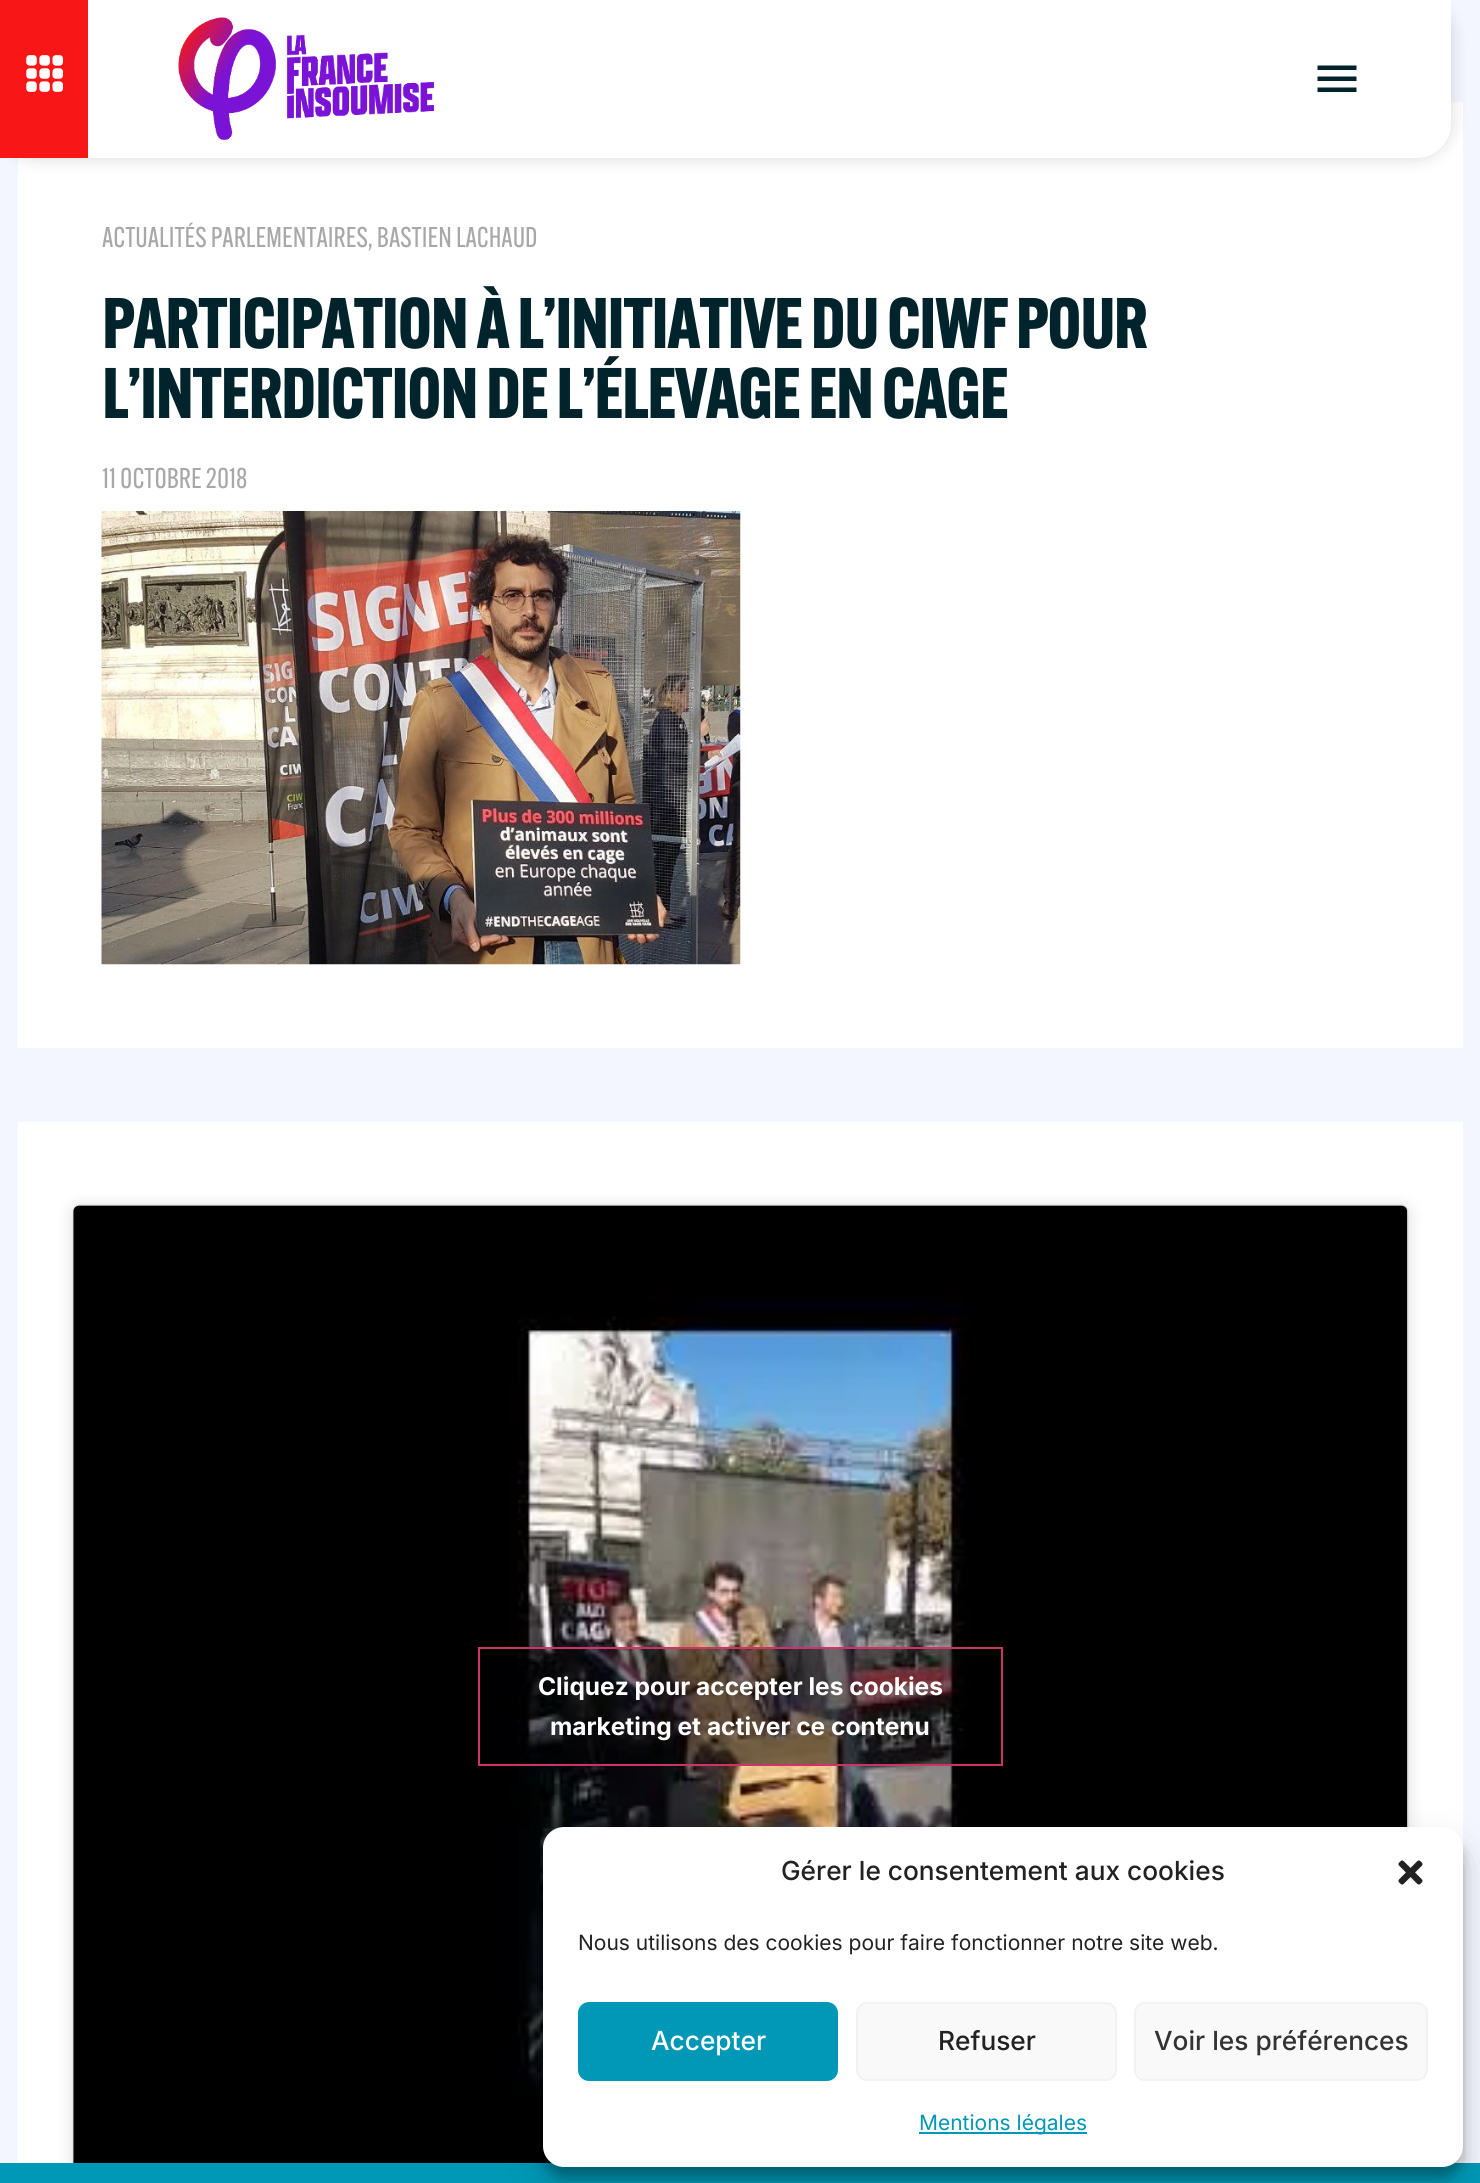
import math
import cairo

surface = cairo.ImageSurface(cairo.FORMAT_RGB24, 1480, 2183)
cr = cairo.Context(surface)
options = cairo.FontOptions()
options.set_hint_metrics(cairo.HINT_METRICS_OFF)
options.set_hint_style(cairo.HINT_STYLE_NONE)
cr.set_font_options(options)
cr.set_miter_limit(4)


def rgb(code):
    cr.set_source_rgb(*(v / 255 for v in bytes.fromhex(code[-6:])))


def tracked(x, y, s, letter, word):
    cr.move_to(x, y)
    for ch in s:
        cr.show_text(ch)
        cr.rel_move_to(letter + word * (ch == ' '), 0)


def rrect(x, y, w, h, r):
    cr.new_sub_path()
    for i, (u, v) in enumerate([(x + w - r, y + h - r), (x + r, y + h - r), (x + r, y + r), (x + w - r, y + r)]):
        cr.arc(u, v, r, i * math.pi / 2, (i + 1) * math.pi / 2)
    cr.close_path()


def soft_shadow(x, y, w, h, r, blur, alpha):
    cr.push_group_with_content(cairo.CONTENT_ALPHA)
    cr.set_operator(cairo.OPERATOR_SOURCE)
    for i in range(15, -16, -2):
        e = blur * i / 6
        if min(w, h) + 2 * e > 0:
            cr.set_source_rgba(0, 0, 0, alpha * math.erfc((i - 1) / 8.5) / 2)
            rrect(x - e, y - e, w + 2 * e, h + 2 * e, max(0, min(r + e + blur * .6, min(w, h) / 2 + e)))
            cr.fill()
    cr.mask(cr.pop_group())


def image(path, x, y, w, h):
    cr.save()
    cr.set_source_surface(cairo.ImageSurface.create_from_png(path), x, y)
    cr.rectangle(x, y, w, h)
    cr.fill()
    cr.restore()


rgb("#f3f5ff")
cr.paint()
rgb("#ffffff")
cr.rectangle(18, 102, 1445, 946)
cr.fill()
rgb("#000000")
soft_shadow(0, 0, 1451, 158, 35, 9, 0.15)
rgb("#f91616")
cr.rectangle(0, 0, 88, 158)
cr.fill()
image("img/1.png", 26, 55, 37, 37)
rgb("#ffffff")
cr.new_path()
cr.move_to(88, 0)
cr.line_to(1451, 0)
cr.line_to(1451, 123)
cr.curve_to(1451, 142.5, 1435.5, 158, 1416, 158)
cr.line_to(88, 158)
cr.close_path()
cr.fill()
image("img/2.png", 178, 17, 256, 123)
rgb("#00232c")
cr.new_path()
cr.move_to(1317.5, 65.5)
cr.line_to(1356.5, 65.5)
cr.line_to(1356.5, 70)
cr.line_to(1317.5, 70)
cr.close_path()
cr.move_to(1317.5, 81)
cr.line_to(1317.5, 76.5)
cr.line_to(1356.5, 76.5)
cr.line_to(1356.5, 81)
cr.close_path()
cr.move_to(1317.5, 92)
cr.line_to(1317.5, 87.5)
cr.line_to(1356.5, 87.5)
cr.line_to(1356.5, 92)
cr.close_path()
cr.fill()
image("img/3.png", 101, 511, 640, 454)
rgb("#ffffff")
cr.rectangle(18, 1122, 1445, 1041)
cr.fill()
rgb("#000000")
soft_shadow(74, 1208, 1333, 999, 5, 9, 0.15)
soft_shadow(74, 1206, 1333, 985, 5, 1, 0.5)
image("img/4.png", 73, 1205, 1334, 958)
cr.set_source_rgba(0, 0, 0, 0.5)
cr.rectangle(517, 1649, 447, 115)
cr.fill()
cr.rectangle(479, 1648, 523, 117)
rgb("#cc3366")
cr.stroke()
rgb("#0098b6")
cr.rectangle(0, 2163, 1480, 20)
cr.fill()
rgb("#000000")
soft_shadow(543, 1838, 920, 339, 21, 5, 0.23)
soft_shadow(543, 1845, 920, 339, 21, 17.5, 0.19)
rgb("#ffffff")
rrect(543, 1827, 920, 340, 21)
cr.fill()
image("img/5.png", 1398, 1860, 25, 25)
rgb("#0098b6")
rrect(579, 2003, 258, 77, 10)
cr.fill_preserve()
cr.stroke()
rgb("#f9f9f9")
rrect(857, 2003, 259, 77, 10)
cr.fill_preserve()
rgb("#f2f2f2")
cr.stroke()
rgb("#f9f9f9")
rrect(1135, 2003, 292, 77, 10)
cr.fill_preserve()
rgb("#f2f2f2")
cr.stroke()
rgb("#0098b6")
cr.rectangle(919, 2132, 168, 2)
cr.fill()
cr.select_font_face("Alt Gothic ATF")
cr.set_font_size(28)
rgb("#a8a8a8")
cr.move_to(102, 247)
cr.show_text("ACTUALITÉS PARLEMENTAIRES, BASTIEN LACHAUD")
cr.select_font_face("Alt Gothic ATF", cairo.FONT_SLANT_NORMAL, cairo.FONT_WEIGHT_BOLD)
cr.set_font_size(70)
rgb("#00232c")
tracked(102, 348, "PARTICIPATION À L’INITIATIVE DU CIWF POUR", -1.4, 0)
tracked(102, 418, "L’INTERDICTION DE L’ÉLEVAGE EN CAGE", -1.4, 0)
cr.select_font_face("Alt Gothic ATF")
cr.set_font_size(28)
rgb("#a8a8a8")
cr.move_to(102, 488)
cr.show_text("11 OCTOBRE 2018")
cr.select_font_face("Inter", cairo.FONT_SLANT_NORMAL, cairo.FONT_WEIGHT_BOLD)
cr.set_font_size(24.5)
rgb("#ffffff")
cr.move_to(538, 1695)
cr.show_text("Cliquez pour accepter les cookies")
cr.move_to(550, 1735)
cr.show_text("marketing et activer ce contenu")
cr.select_font_face("Inter Medium")
cr.set_font_size(26.25)
rgb("#222222")
cr.move_to(781, 1880)
cr.show_text("Gérer le consentement aux cookies")
cr.select_font_face("Inter")
cr.set_font_size(21)
cr.move_to(578, 1950)
cr.show_text("Nous utilisons des cookies pour faire fonctionner notre site web.")
cr.select_font_face("Inter Medium")
cr.set_font_size(26.25)
rgb("#ffffff")
cr.move_to(651, 2050)
cr.show_text("Accepter")
rgb("#222222")
cr.move_to(938, 2050)
cr.show_text("Refuser")
rgb("#333333")
cr.move_to(1154, 2050)
cr.show_text("Voir les préférences")
cr.select_font_face("Inter")
cr.set_font_size(21)
rgb("#0098b6")
cr.move_to(919, 2130)
cr.show_text("Mentions légales")
surface.write_to_png("page.png")
